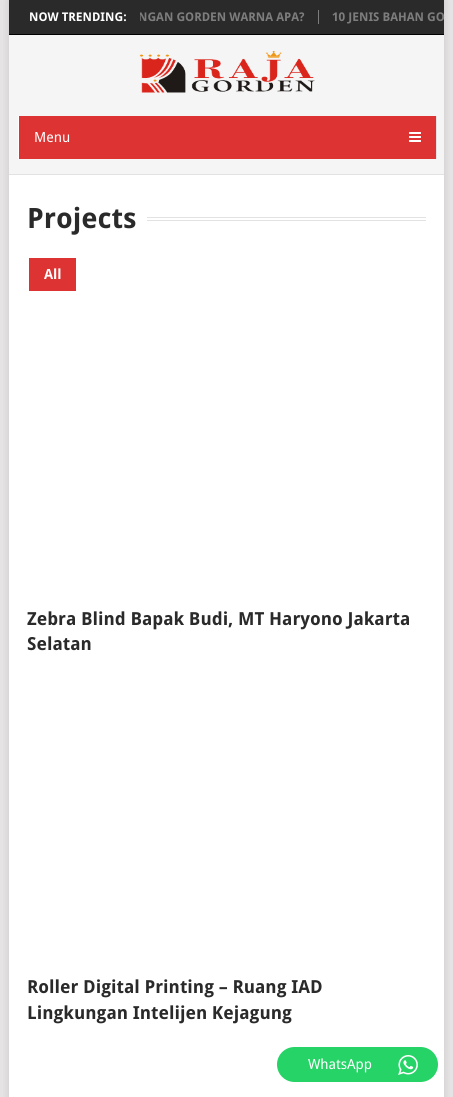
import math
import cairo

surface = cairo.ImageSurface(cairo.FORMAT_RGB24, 453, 1097)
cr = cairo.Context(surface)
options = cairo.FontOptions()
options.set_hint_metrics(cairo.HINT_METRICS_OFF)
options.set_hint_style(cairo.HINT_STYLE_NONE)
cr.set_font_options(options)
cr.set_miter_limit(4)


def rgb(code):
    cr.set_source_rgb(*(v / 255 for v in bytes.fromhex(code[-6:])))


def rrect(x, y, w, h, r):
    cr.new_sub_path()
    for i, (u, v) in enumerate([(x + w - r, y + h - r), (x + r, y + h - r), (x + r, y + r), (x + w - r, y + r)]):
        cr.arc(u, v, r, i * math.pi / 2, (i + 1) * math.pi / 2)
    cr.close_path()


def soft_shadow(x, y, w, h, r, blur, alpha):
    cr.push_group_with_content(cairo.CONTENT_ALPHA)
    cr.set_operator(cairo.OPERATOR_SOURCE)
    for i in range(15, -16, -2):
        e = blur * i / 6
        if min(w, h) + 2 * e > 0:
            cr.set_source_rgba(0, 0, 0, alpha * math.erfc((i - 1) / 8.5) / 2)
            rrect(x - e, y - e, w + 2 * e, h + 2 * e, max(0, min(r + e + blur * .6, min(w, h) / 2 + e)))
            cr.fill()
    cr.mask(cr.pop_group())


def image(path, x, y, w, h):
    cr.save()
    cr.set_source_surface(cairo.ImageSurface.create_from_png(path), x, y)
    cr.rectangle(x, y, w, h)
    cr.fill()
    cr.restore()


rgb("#e7e5e6")
cr.paint()
rgb("#323232")
soft_shadow(9, 0, 435, 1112, 0, 5, 0.17)
for x, y, w, h, color in [
    (9, 175, 435, 922, "#ffffff"),
    (9, 0, 435, 34, "#2a2a2a"),
    (9, 34, 435, 1, "#000000"),
    (318, 10, 1, 14, "#7d7d7d"),
    (9, 35, 435, 139, "#f5f5f5"),
    (9, 174, 435, 1, "#e2e2e2"),
]:
    rgb(color)
    cr.rectangle(x, y, w, h)
    cr.fill()
image("img/1.png", 139, 51, 176, 42)
for x, y, w, h, color in [
    (19, 116, 417, 43, "#dd3333"),
    (436, 116, 1, 43, "#e2e2e2"),
    (18, 116, 1, 43, "#ffffff"),
]:
    rgb(color)
    cr.rectangle(x, y, w, h)
    cr.fill()
image("img/2.png", 409, 132, 12, 10)
for x, y, w, h, color in [
    (147, 217, 279, 1, "#e2e2e2"),
    (147, 220, 279, 1, "#e2e2e2"),
    (29, 258, 47, 33, "#dd3333"),
]:
    rgb(color)
    cr.rectangle(x, y, w, h)
    cr.fill()
rgb("#25d366")
rrect(277, 1047, 161, 35, 17.5)
cr.fill()
image("img/3.png", 398, 1055, 20, 20)
cr.select_font_face("Droid Sans", cairo.FONT_SLANT_NORMAL, cairo.FONT_WEIGHT_BOLD)
cr.set_font_size(12)
rgb("#ffffff")
cr.move_to(29, 21)
cr.show_text("NOW TRENDING:")
rgb("#7d7d7d")
cr.move_to(138, 21)
cr.show_text("NGAN GORDEN WARNA APA?")
rgb("#2a2a2a")
cr.rectangle(139, 12, 1, 9)
cr.fill()
rgb("#7d7d7d")
cr.move_to(332, 21)
cr.show_text("10 JENIS BAHAN GO")
cr.select_font_face("Droid Sans")
cr.set_font_size(14)
rgb("#ffffff")
cr.move_to(34, 142)
cr.show_text("Menu")
cr.select_font_face("Droid Sans", cairo.FONT_SLANT_NORMAL, cairo.FONT_WEIGHT_BOLD)
cr.set_font_size(28)
rgb("#2a2a2a")
cr.move_to(27, 228)
cr.show_text("Projects")
cr.set_font_size(14)
rgb("#ffffff")
cr.move_to(44, 279)
cr.show_text("All")
cr.set_font_size(18)
rgb("#2a2a2a")
for x, y, s in [
    (27, 625, "Zebra Blind Bapak Budi, MT Haryono Jakarta"),
    (27, 650, "Selatan"),
    (27, 993, "Roller Digital Printing – Ruang IAD"),
    (27, 1019, "Lingkungan Intelijen Kejagung"),
]:
    cr.move_to(x, y)
    cr.show_text(s)
cr.select_font_face("Droid Sans")
cr.set_font_size(14)
rgb("#ffffff")
cr.move_to(308, 1069)
cr.show_text("WhatsApp")
surface.write_to_png("page.png")
